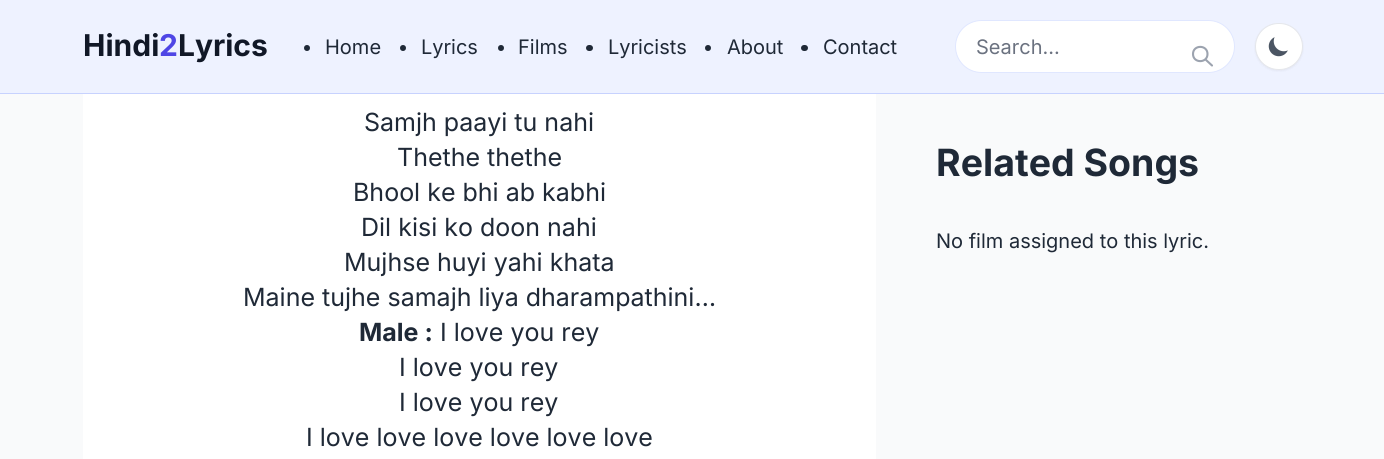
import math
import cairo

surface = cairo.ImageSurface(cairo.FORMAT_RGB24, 1384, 459)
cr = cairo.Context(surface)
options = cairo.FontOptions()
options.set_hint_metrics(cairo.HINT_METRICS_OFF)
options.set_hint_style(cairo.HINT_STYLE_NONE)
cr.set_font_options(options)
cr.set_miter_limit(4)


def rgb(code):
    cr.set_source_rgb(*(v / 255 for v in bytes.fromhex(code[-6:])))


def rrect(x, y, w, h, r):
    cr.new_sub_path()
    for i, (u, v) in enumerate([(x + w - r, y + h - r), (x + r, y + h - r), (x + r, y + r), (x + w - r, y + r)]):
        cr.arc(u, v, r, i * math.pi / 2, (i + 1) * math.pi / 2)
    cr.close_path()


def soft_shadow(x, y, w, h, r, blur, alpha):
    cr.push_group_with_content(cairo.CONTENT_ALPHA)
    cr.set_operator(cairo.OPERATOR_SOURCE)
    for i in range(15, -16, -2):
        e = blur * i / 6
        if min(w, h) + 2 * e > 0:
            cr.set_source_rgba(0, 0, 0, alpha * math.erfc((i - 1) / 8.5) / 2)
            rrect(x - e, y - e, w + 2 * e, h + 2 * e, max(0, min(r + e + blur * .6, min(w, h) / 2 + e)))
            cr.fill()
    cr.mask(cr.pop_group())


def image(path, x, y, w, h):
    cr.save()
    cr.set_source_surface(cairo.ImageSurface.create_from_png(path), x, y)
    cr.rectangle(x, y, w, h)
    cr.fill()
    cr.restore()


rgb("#f9fafb")
cr.paint()
rgb("#eef2ff")
cr.rectangle(0, 0, 1384, 93)
cr.fill()
rgb("#c7d2fe")
cr.rectangle(0, 93, 1384, 1)
cr.fill()
rgb("#1f2937")
cr.arc(307, 48, 3, 0, 2 * math.pi)
cr.fill()
cr.arc(403, 48, 3, 0, 2 * math.pi)
cr.fill()
cr.arc(501, 48, 3, 0, 2 * math.pi)
cr.fill()
rrect(586, 45, 7, 6, 3)
cr.fill()
cr.arc(708, 48, 3, 0, 2 * math.pi)
cr.fill()
rrect(801, 45, 7, 6, 3)
cr.fill()
rgb("#ffffff")
rrect(955.5, 20.5, 279, 52, 26)
cr.fill_preserve()
rgb("#e0e7ff")
cr.set_line_width(1)
cr.stroke()
cr.new_path()
cr.move_to(1212, 65.5)
cr.line_to(1205.5, 59.5)
cr.move_to(1207.5, 54)
cr.curve_to(1207.5, 63.5, 1193, 63.5, 1193, 54)
cr.curve_to(1193, 44.5, 1207.5, 44.5, 1207.5, 54)
cr.close_path()
rgb("#9ca3af")
cr.set_line_width(2.1)
cr.set_line_cap(cairo.LINE_CAP_ROUND)
cr.set_line_join(cairo.LINE_JOIN_ROUND)
cr.stroke()
rgb("#000000")
soft_shadow(1255, 24, 48, 47, 23.5, 1, 0.05)
rgb("#ffffff")
rrect(1255.5, 23.5, 47, 46, 23)
cr.fill_preserve()
rgb("#e5e7eb")
cr.set_line_width(1)
cr.set_line_cap(cairo.LINE_CAP_BUTT)
cr.set_line_join(cairo.LINE_JOIN_MITER)
cr.stroke()
image("img/1.png", 1268, 37, 20, 20)
rgb("#ffffff")
cr.rectangle(83, 94, 793, 365)
cr.fill()
cr.select_font_face("Inter", cairo.FONT_SLANT_NORMAL, cairo.FONT_WEIGHT_BOLD)
cr.set_font_size(30)
rgb("#111827")
cr.move_to(83, 56)
cr.show_text("Hindi")
rgb("#4f46e5")
cr.move_to(159, 56)
cr.show_text("2")
rgb("#111827")
cr.move_to(178, 56)
cr.show_text("Lyrics")
cr.select_font_face("Inter")
cr.set_font_size(20)
rgb("#1f2937")
for x, y, s in [
    (325, 54, "Home"),
    (421, 54, "Lyrics"),
    (518, 54, "Films"),
    (608, 54, "Lyricists"),
    (727, 54, "About"),
    (823, 54, "Contact"),
]:
    cr.move_to(x, y)
    cr.show_text(s)
rgb("#6b7280")
cr.move_to(976, 54)
cr.show_text("Search...")
cr.set_font_size(25)
rgb("#1f2937")
for x, y, s in [
    (364, 131, "Samjh paayi tu nahi"),
    (397, 166, "Thethe thethe"),
    (353, 201, "Bhool ke bhi ab kabhi"),
    (361, 236, "Dil kisi ko doon nahi"),
    (344, 271, "Mujhse huyi yahi khata"),
    (243, 306, "Maine tujhe samajh liya dharampathini…"),
]:
    cr.move_to(x, y)
    cr.show_text(s)
cr.select_font_face("Inter", cairo.FONT_SLANT_NORMAL, cairo.FONT_WEIGHT_BOLD)
cr.move_to(359, 341)
cr.show_text("Male :")
cr.select_font_face("Inter")
for x, y, s in [
    (440, 341, "I love you rey"),
    (399, 376, "I love you rey"),
    (399, 411, "I love you rey"),
    (306, 446, "I love love love love love love"),
]:
    cr.move_to(x, y)
    cr.show_text(s)
cr.select_font_face("Inter", cairo.FONT_SLANT_NORMAL, cairo.FONT_WEIGHT_BOLD)
cr.set_font_size(37.5)
cr.move_to(936, 176)
cr.show_text("Related Songs")
cr.select_font_face("Inter")
cr.set_font_size(20)
cr.move_to(936, 248)
cr.show_text("No film assigned to this lyric.")
surface.write_to_png("page.png")
